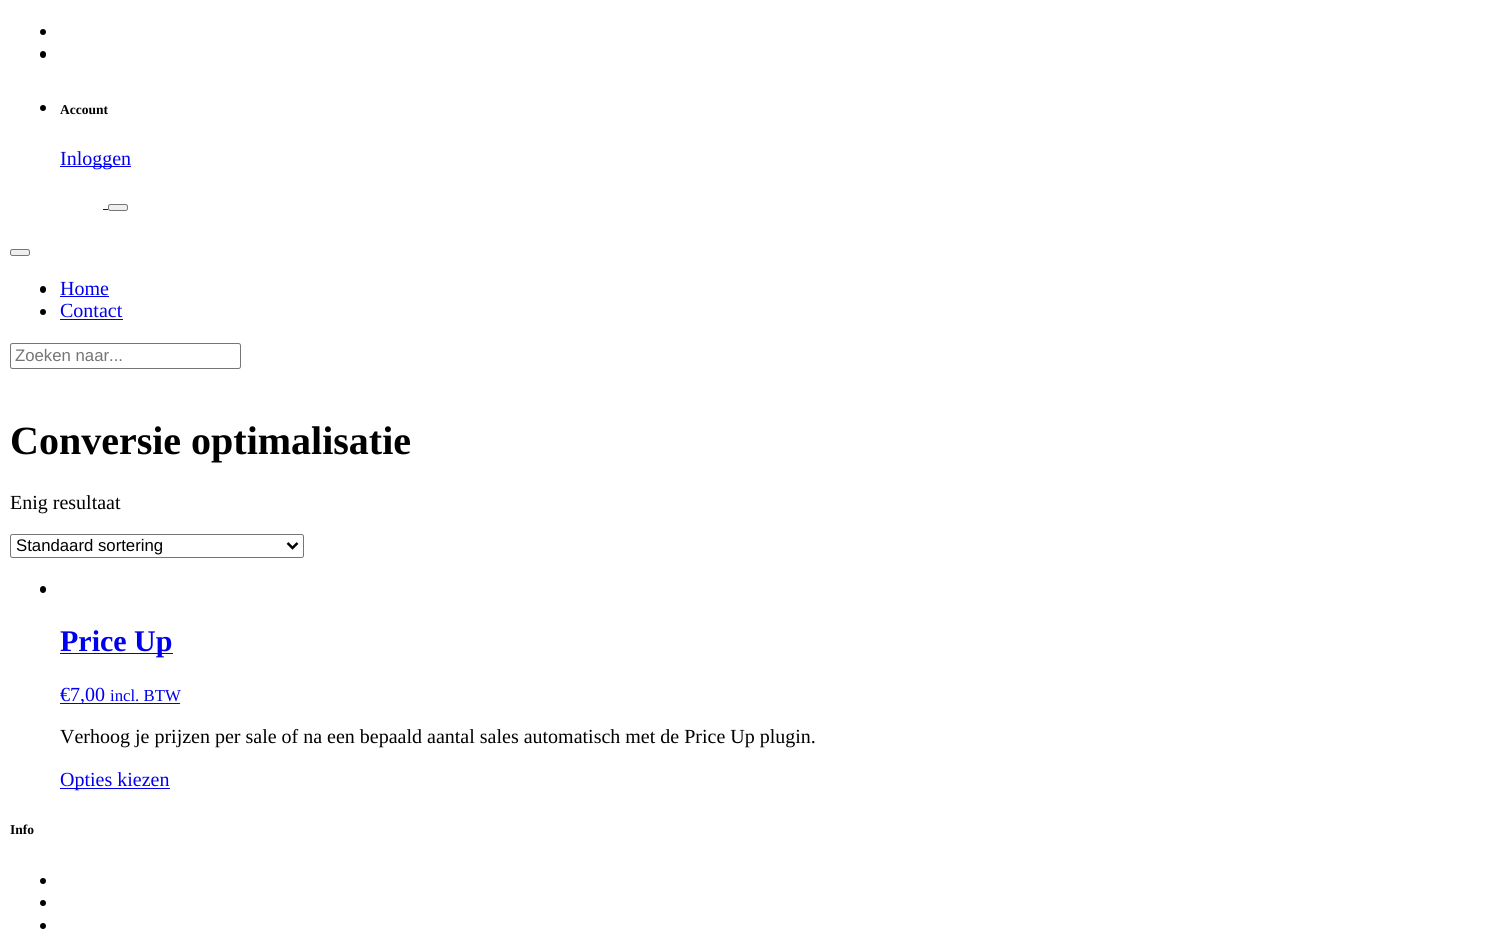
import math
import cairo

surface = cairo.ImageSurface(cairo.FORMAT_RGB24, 1486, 930)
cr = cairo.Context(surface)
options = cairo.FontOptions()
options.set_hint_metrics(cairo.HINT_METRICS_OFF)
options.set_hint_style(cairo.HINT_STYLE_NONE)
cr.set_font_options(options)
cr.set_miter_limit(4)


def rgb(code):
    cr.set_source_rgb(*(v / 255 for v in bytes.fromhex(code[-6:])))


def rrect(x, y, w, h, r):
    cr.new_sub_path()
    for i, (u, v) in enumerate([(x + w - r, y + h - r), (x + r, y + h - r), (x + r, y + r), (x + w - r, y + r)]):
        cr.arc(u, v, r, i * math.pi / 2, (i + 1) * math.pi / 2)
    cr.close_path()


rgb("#ffffff")
cr.paint()
rgb("#000000")
cr.arc(43, 32, 3, 0, 2 * math.pi)
cr.fill()
rrect(40, 51, 6, 7, 3)
cr.fill()
cr.arc(43, 108, 3, 0, 2 * math.pi)
cr.fill()
rgb("#0000ee")
cr.rectangle(60, 166, 71, 1)
cr.fill()
cr.rectangle(103, 209, 5, 1)
cr.fill()
rgb("#efefef")
rrect(108.5, 204.5, 19, 6, 2)
cr.fill_preserve()
rgb("#767676")
cr.set_line_width(1)
cr.stroke()
rgb("#efefef")
rrect(10.5, 249.5, 19, 6, 2)
cr.fill_preserve()
rgb("#767676")
cr.stroke()
rgb("#000000")
rrect(40, 286, 6, 7, 3)
cr.fill()
rgb("#0000ee")
cr.rectangle(60, 296, 49, 1)
cr.fill()
rgb("#000000")
cr.arc(43, 312, 3, 0, 2 * math.pi)
cr.fill()
rgb("#0000ee")
cr.rectangle(60, 319, 63, 1)
cr.fill()
rrect(10.5, 343.5, 230, 25, 2)
rgb("#767676")
cr.stroke()
rrect(10.5, 534.5, 293, 23, 2)
cr.stroke()
cr.new_path()
cr.move_to(287.5, 543)
cr.line_to(292.5, 548)
cr.line_to(297.5, 543)
rgb("#000000")
cr.set_line_width(2.5)
cr.stroke()
rrect(40, 586, 6, 7, 3)
cr.fill()
for x, y, w, h, color in [
    (60, 653, 113, 1, "#0000ee"),
    (60, 703, 120, 1, "#0000ee"),
    (60, 788, 110, 1, "#0000ee"),
]:
    rgb(color)
    cr.rectangle(x, y, w, h)
    cr.fill()
rgb("#000000")
cr.arc(43, 881, 3, 0, 2 * math.pi)
cr.fill()
cr.arc(43, 903, 3, 0, 2 * math.pi)
cr.fill()
cr.arc(43, 926, 3, 0, 2 * math.pi)
cr.fill()
cr.select_font_face("Liberation Serif", cairo.FONT_SLANT_NORMAL, cairo.FONT_WEIGHT_BOLD)
cr.set_font_size(13.5)
cr.move_to(60, 114)
cr.show_text("Account")
cr.select_font_face("Liberation Serif")
cr.set_font_size(20)
rgb("#0000ee")
for x, y, s in [
    (60, 165, "Inloggen"),
    (60, 295, "Home"),
    (60, 317, "Contact"),
]:
    cr.move_to(x, y)
    cr.show_text(s)
cr.select_font_face("Liberation Sans")
cr.set_font_size(16.75)
rgb("#757575")
cr.move_to(15, 361)
cr.show_text("Zoeken naar...")
cr.select_font_face("Liberation Serif", cairo.FONT_SLANT_NORMAL, cairo.FONT_WEIGHT_BOLD)
cr.set_font_size(40)
rgb("#000000")
cr.move_to(10, 454)
cr.show_text("Conversie optimalisatie")
cr.select_font_face("Liberation Serif")
cr.set_font_size(20)
cr.move_to(10, 509)
cr.show_text("Enig resultaat")
cr.select_font_face("Liberation Sans")
cr.set_font_size(16.75)
cr.move_to(16, 551)
cr.show_text("Standaard sortering")
cr.select_font_face("Liberation Serif", cairo.FONT_SLANT_NORMAL, cairo.FONT_WEIGHT_BOLD)
cr.set_font_size(30)
rgb("#0000ee")
cr.move_to(60, 651)
cr.show_text("Price Up")
cr.select_font_face("Liberation Serif")
cr.set_font_size(20)
cr.move_to(60, 701)
cr.show_text("€7,00")
cr.set_font_size(16.75)
cr.move_to(110, 701)
cr.show_text("incl. BTW")
cr.set_font_size(20)
rgb("#000000")
cr.move_to(60, 743)
cr.show_text("Verhoog je prijzen per sale of na een bepaald aantal sales automatisch met de Price Up plugin.")
rgb("#0000ee")
cr.move_to(60, 786)
cr.show_text("Opties kiezen")
cr.select_font_face("Liberation Serif", cairo.FONT_SLANT_NORMAL, cairo.FONT_WEIGHT_BOLD)
cr.set_font_size(13.5)
rgb("#000000")
cr.move_to(10, 834)
cr.show_text("Info")
surface.write_to_png("page.png")
